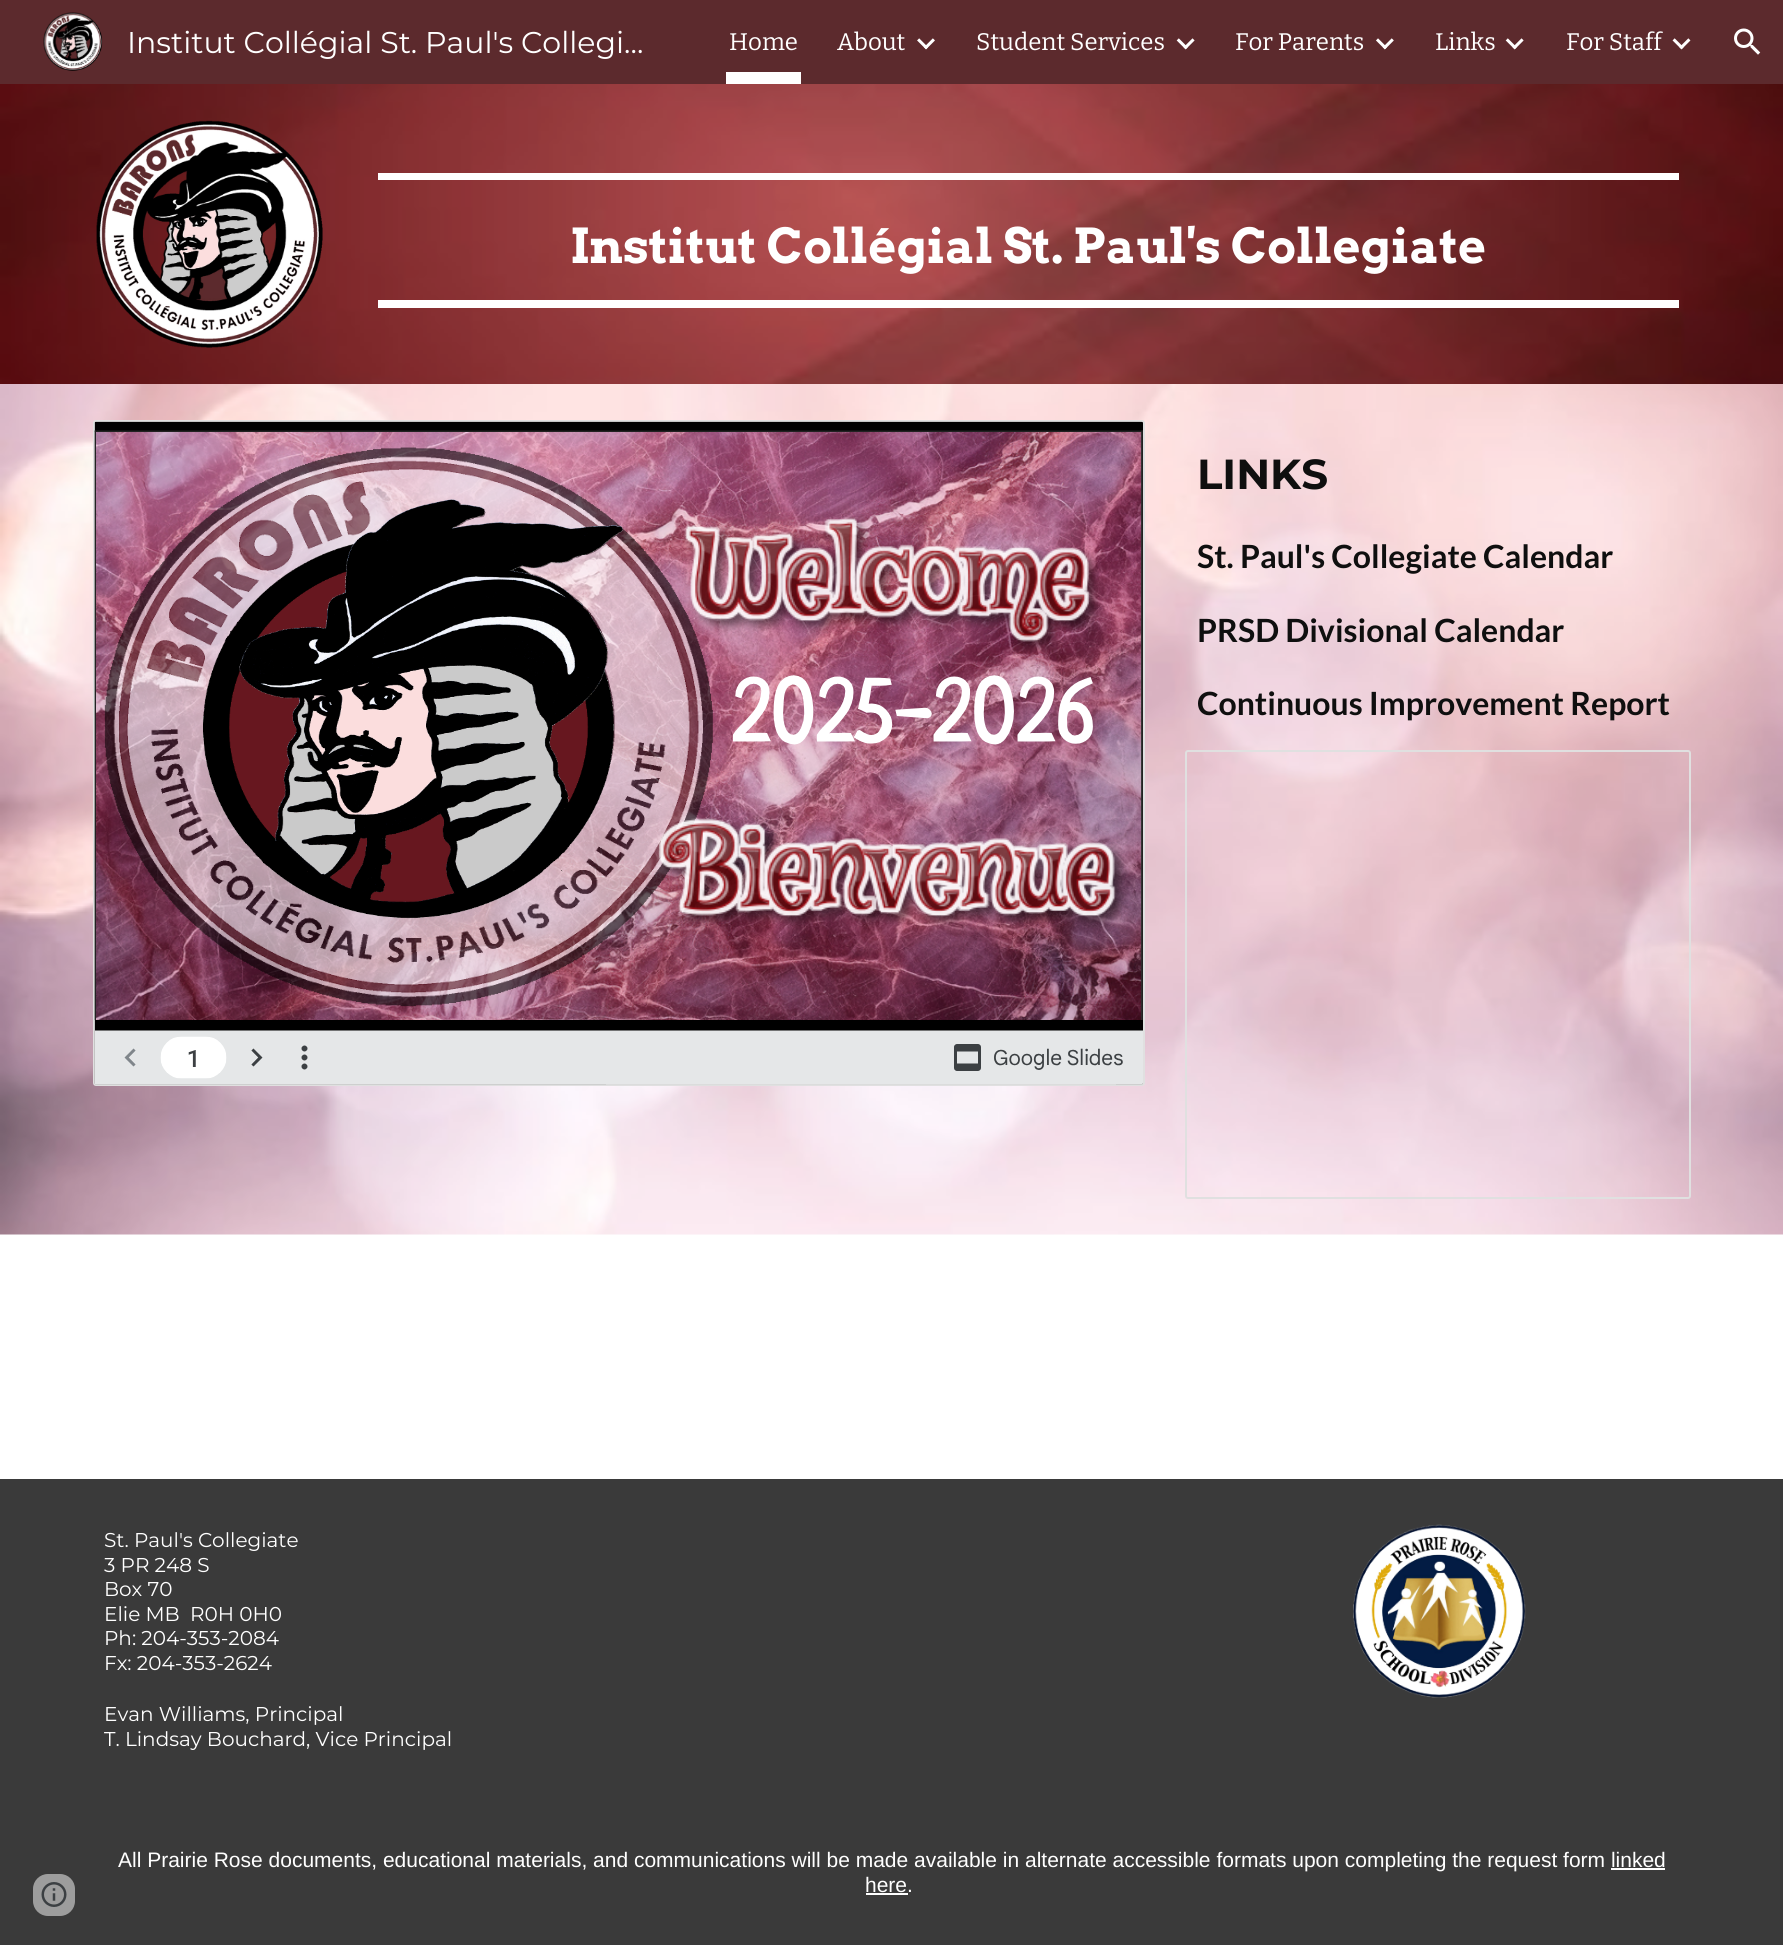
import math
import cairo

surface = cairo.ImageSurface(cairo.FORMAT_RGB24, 1783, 1945)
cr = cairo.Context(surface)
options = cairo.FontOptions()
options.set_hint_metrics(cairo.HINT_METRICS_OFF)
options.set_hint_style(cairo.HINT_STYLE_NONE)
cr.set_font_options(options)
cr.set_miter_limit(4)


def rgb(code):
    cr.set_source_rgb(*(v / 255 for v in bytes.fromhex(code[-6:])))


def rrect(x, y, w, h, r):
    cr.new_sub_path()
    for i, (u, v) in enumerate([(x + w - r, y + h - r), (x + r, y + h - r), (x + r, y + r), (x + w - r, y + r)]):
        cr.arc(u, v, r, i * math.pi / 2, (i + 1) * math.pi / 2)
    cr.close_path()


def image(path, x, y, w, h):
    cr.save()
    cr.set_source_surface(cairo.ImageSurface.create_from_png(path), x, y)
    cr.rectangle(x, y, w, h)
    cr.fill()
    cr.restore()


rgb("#ffffff")
cr.paint()
rgb("#5c2a2d")
cr.rectangle(0, 0, 1783, 84)
cr.fill()
image("img/1.png", 43, 12, 60, 59)
rgb("#ffffff")
cr.rectangle(726, 72, 75, 12)
cr.fill()
image("img/2.png", 917, 38, 18, 12)
image("img/3.png", 1176, 38, 19, 12)
image("img/4.png", 1376, 38, 18, 12)
image("img/5.png", 1505, 38, 19, 12)
image("img/6.png", 1672, 38, 19, 12)
image("img/7.png", 1734, 28, 27, 27)
image("img/8.png", 0, 84, 1783, 300)
image("img/9.png", 96, 120, 227, 228)
cr.rectangle(378, 173, 1301, 7)
cr.fill()
cr.rectangle(378, 300, 1301, 8)
cr.fill()
image("img/10.png", 0, 384, 1783, 851)
rrect(94, 421, 1050, 664, 2)
rgb("#e0e0e0")
cr.stroke()
image("img/11.png", 94, 421, 1049, 664)
rrect(1186, 751, 504, 447, 2)
cr.stroke()
rgb("#3a3a3a")
cr.rectangle(0, 1479, 1783, 466)
cr.fill()
rgb("#9d9d9d")
rrect(33, 1874, 42, 42, 15)
cr.fill()
image("img/12.png", 41, 1882, 26, 25)
image("img/13.png", 1353, 1524, 173, 174)
rgb("#ffffff")
cr.rectangle(1611, 1868, 54, 2)
cr.fill()
cr.rectangle(866, 1893, 42, 2)
cr.fill()
cr.select_font_face("Montserrat")
cr.set_font_size(30)
cr.move_to(127, 53)
cr.show_text("Institut Collégial St. Paul's Collegi…")
cr.select_font_face("Bitter")
cr.set_font_size(24)
for x, y, s in [
    (729, 50, "Home"),
    (837, 50, "About"),
    (976, 50, "Student Services"),
    (1235, 50, "For Parents"),
    (1435, 50, "Links"),
    (1566, 50, "For Staff"),
]:
    cr.move_to(x, y)
    cr.show_text(s)
cr.select_font_face("Arvo", cairo.FONT_SLANT_NORMAL, cairo.FONT_WEIGHT_BOLD)
cr.set_font_size(48)
cr.move_to(570, 263)
cr.show_text("Institut Collégial St. Paul's Collegiate")
cr.select_font_face("Montserrat", cairo.FONT_SLANT_NORMAL, cairo.FONT_WEIGHT_BOLD)
cr.set_font_size(42)
rgb("#0f0f0f")
cr.move_to(1197, 489)
cr.show_text("LINKS")
cr.select_font_face("Lato", cairo.FONT_SLANT_NORMAL, cairo.FONT_WEIGHT_BOLD)
cr.set_font_size(32)
for x, y, s in [
    (1197, 568, "St. Paul's Collegiate Calendar"),
    (1197, 642, "PRSD Divisional Calendar"),
    (1197, 715, "Continuous Improvement Report"),
]:
    cr.move_to(x, y)
    cr.show_text(s)
cr.select_font_face("Montserrat")
cr.set_font_size(20)
rgb("#ffffff")
for x, y, s in [
    (104, 1547, "St. Paul's Collegiate"),
    (104, 1572, "3 PR 248 S"),
    (104, 1596, "Box 70"),
    (104, 1621, "Elie MB  R0H 0H0"),
    (104, 1645, "Ph: 204-353-2084"),
    (104, 1670, "Fx: 204-353-2624"),
    (104, 1721, "Evan Williams, Principal"),
    (104, 1746, "T. Lindsay Bouchard, Vice Principal"),
]:
    cr.move_to(x, y)
    cr.show_text(s)
cr.select_font_face("Liberation Sans")
cr.set_font_size(21)
cr.move_to(118, 1867)
cr.show_text("All Prairie Rose documents, educational materials, and communications will be made available in alternate accessible formats upon completing the request form linked")
cr.move_to(865, 1892)
cr.show_text("here.")
surface.write_to_png("page.png")
